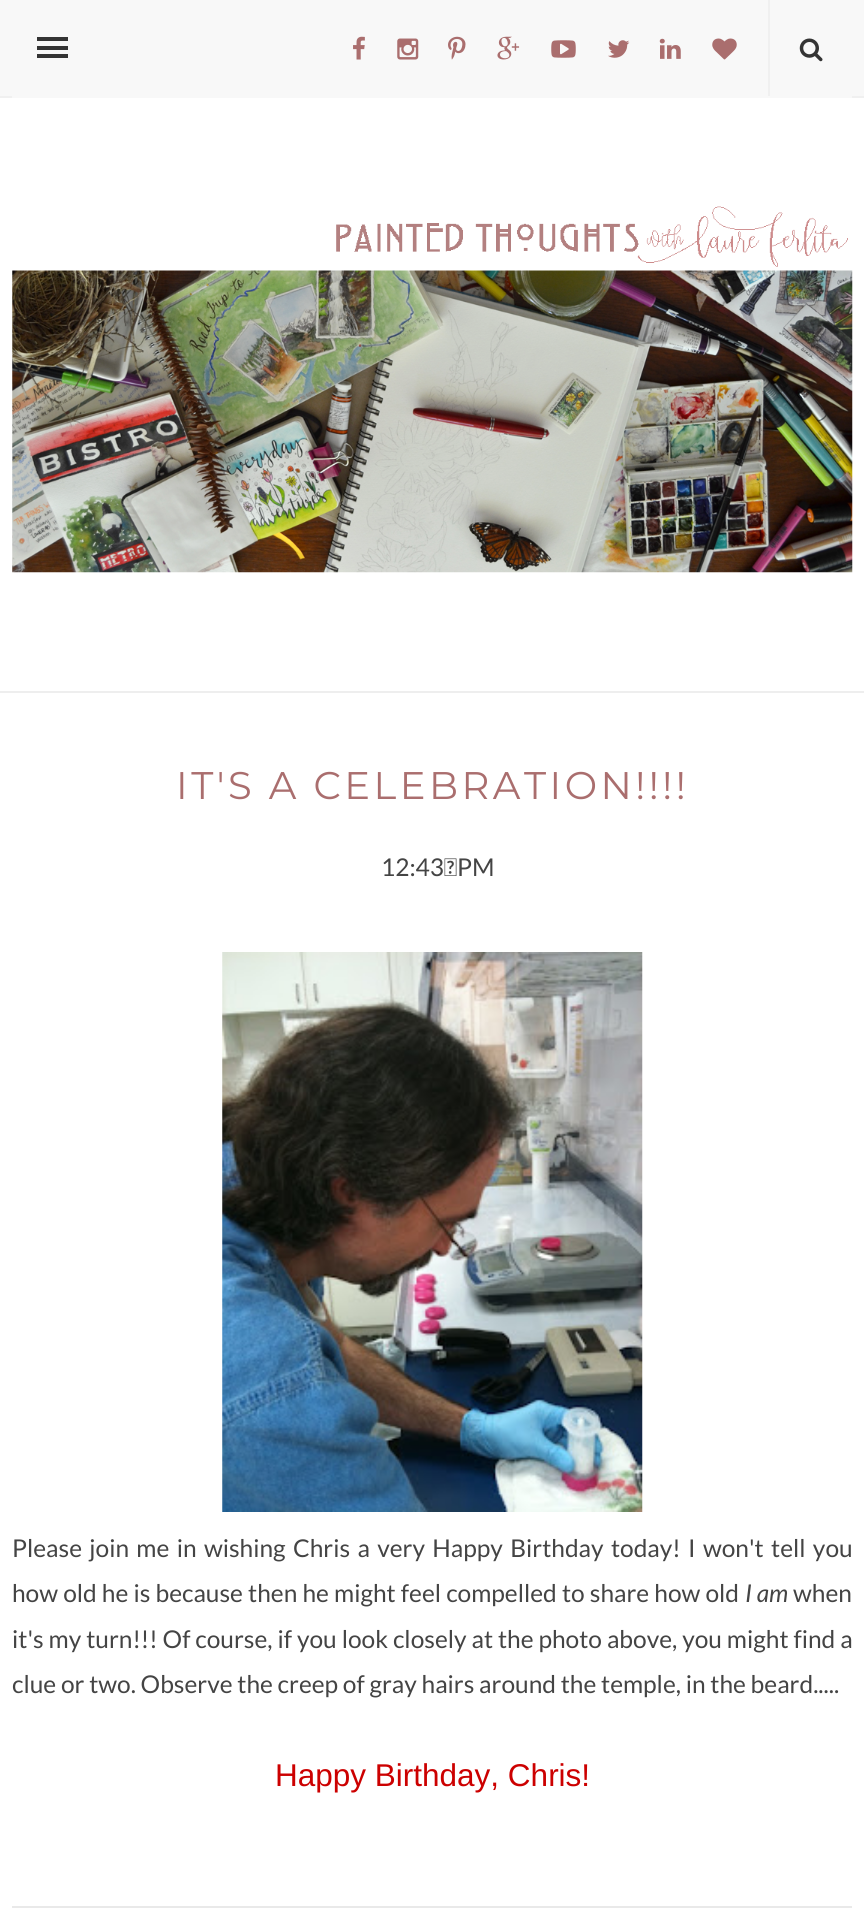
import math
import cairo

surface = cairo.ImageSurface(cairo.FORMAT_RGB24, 864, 1917)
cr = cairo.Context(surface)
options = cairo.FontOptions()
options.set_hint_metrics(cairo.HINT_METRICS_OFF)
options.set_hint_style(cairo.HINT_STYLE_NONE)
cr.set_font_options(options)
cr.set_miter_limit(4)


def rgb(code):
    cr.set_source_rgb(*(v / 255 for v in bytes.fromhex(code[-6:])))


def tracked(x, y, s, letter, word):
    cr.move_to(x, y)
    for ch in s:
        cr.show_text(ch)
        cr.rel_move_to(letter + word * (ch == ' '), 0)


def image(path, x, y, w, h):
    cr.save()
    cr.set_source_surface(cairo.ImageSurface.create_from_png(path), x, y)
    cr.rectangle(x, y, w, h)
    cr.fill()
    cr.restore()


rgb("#ffffff")
cr.paint()
rgb("#f8f8f8")
cr.rectangle(0, 0, 864, 96)
cr.fill()
rgb("#f0f0f0")
cr.rectangle(0, 96, 864, 2)
cr.fill()
image("img/1.png", 353, 36, 12, 24)
image("img/2.png", 397, 38, 22, 22)
image("img/3.png", 448, 36, 18, 24)
image("img/4.png", 497, 36, 23, 24)
image("img/5.png", 551, 40, 25, 18)
image("img/6.png", 608, 40, 22, 18)
image("img/7.png", 659, 38, 22, 21)
image("img/8.png", 712, 38, 25, 22)
cr.rectangle(768, 0, 2, 96)
cr.fill()
image("img/9.png", 799, 38, 24, 24)
for x, y, w, h, color in [
    (12, 96, 840, 2, "#f8f8f8"),
    (37, 37, 31, 4, "#343434"),
    (37, 46, 31, 4, "#343434"),
    (37, 54, 31, 4, "#343434"),
    (0, 691, 864, 2, "#eeeeee"),
]:
    rgb(color)
    cr.rectangle(x, y, w, h)
    cr.fill()
image("img/10.png", 12, 206, 841, 367)
rgb("#e9e9e9")
cr.rectangle(12, 1906, 840, 2)
cr.fill()
image("img/11.png", 222, 952, 421, 560)
cr.select_font_face("Montserrat Thin")
cr.set_font_size(38.5)
rgb("#aa6e6e")
tracked(176, 799, "IT'S A CELEBRATION!!!!", 3.5, 0)
cr.select_font_face("Lato")
cr.set_font_size(24.5)
rgb("#444444")
cr.move_to(381, 876)
cr.show_text("12:43 PM")
tracked(12, 1557, "Please join me in wishing Chris a very Happy Birthday today! I won't tell you", 0, 2.6)
tracked(12, 1602, "how old he is because then he might feel compelled to share how old", 0, 0.4)
cr.select_font_face("Lato", cairo.FONT_SLANT_ITALIC)
cr.move_to(745, 1602)
cr.show_text("I am")
cr.select_font_face("Lato")
cr.move_to(793, 1602)
cr.show_text("when")
tracked(12, 1648, "it's my turn!!! Of course, if you look closely at the photo above, you might find a", 0, 0.2)
cr.move_to(12, 1693)
cr.show_text("clue or two. Observe the creep of gray hairs around the temple, in the beard.....")
cr.select_font_face("Liberation Sans")
cr.set_font_size(31.5)
rgb("#cc0000")
cr.move_to(275, 1786)
cr.show_text("Happy Birthday, Chris!")
surface.write_to_png("page.png")
